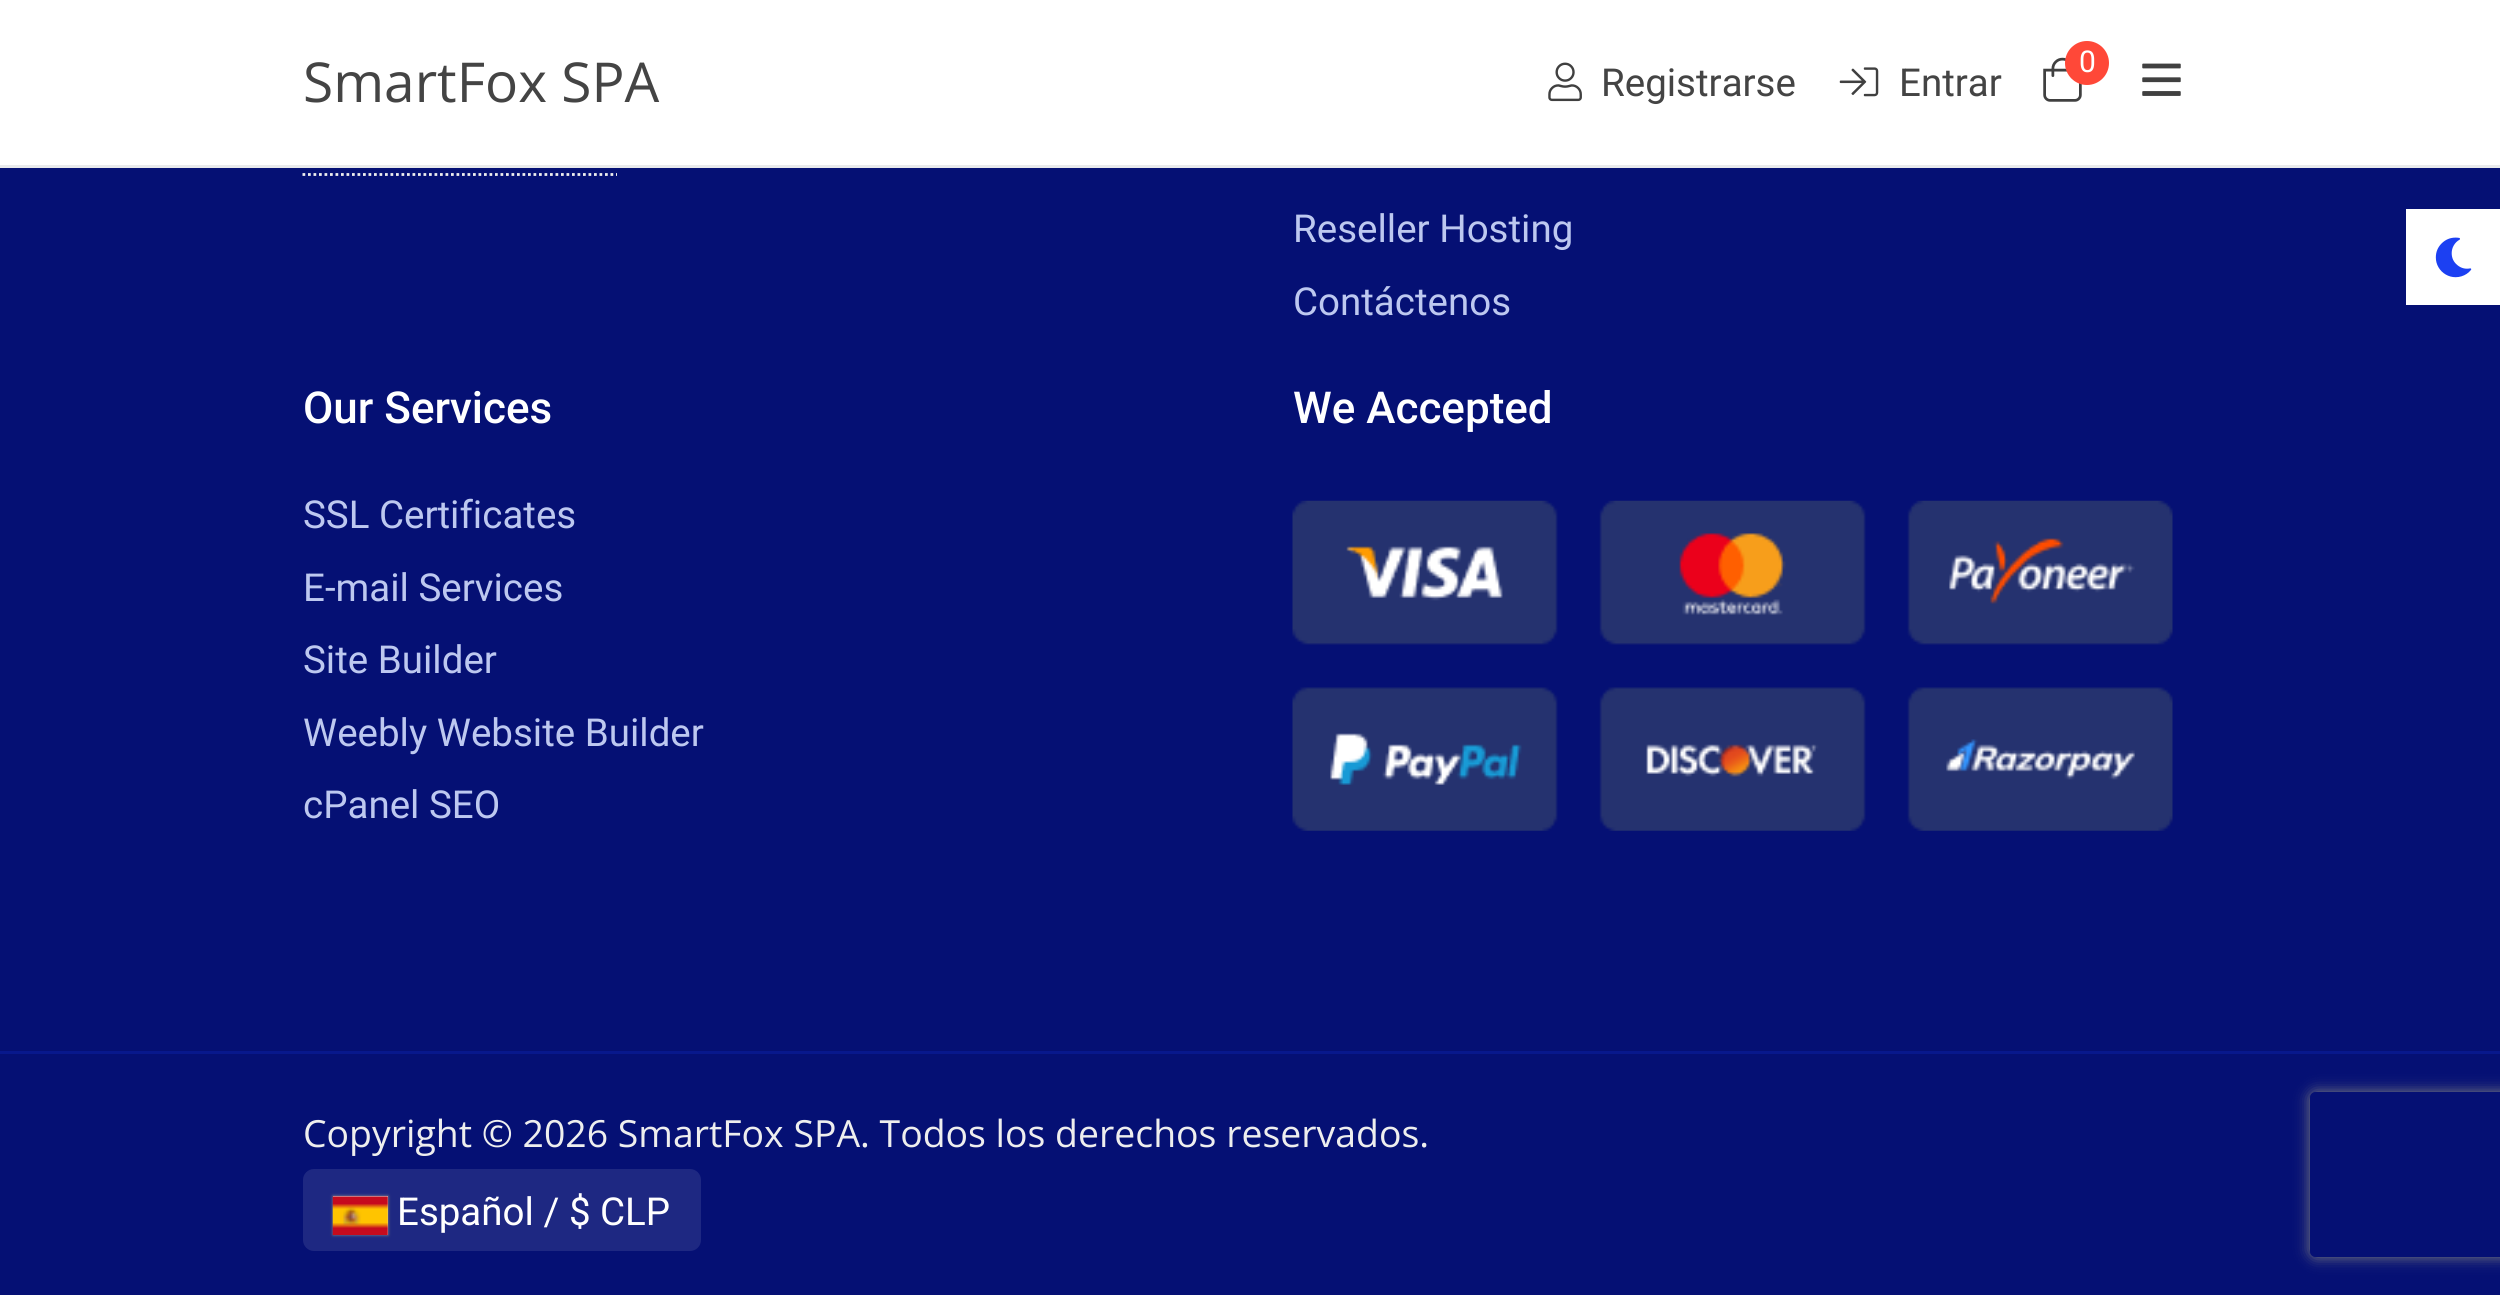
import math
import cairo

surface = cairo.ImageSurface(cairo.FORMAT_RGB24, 2500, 1295)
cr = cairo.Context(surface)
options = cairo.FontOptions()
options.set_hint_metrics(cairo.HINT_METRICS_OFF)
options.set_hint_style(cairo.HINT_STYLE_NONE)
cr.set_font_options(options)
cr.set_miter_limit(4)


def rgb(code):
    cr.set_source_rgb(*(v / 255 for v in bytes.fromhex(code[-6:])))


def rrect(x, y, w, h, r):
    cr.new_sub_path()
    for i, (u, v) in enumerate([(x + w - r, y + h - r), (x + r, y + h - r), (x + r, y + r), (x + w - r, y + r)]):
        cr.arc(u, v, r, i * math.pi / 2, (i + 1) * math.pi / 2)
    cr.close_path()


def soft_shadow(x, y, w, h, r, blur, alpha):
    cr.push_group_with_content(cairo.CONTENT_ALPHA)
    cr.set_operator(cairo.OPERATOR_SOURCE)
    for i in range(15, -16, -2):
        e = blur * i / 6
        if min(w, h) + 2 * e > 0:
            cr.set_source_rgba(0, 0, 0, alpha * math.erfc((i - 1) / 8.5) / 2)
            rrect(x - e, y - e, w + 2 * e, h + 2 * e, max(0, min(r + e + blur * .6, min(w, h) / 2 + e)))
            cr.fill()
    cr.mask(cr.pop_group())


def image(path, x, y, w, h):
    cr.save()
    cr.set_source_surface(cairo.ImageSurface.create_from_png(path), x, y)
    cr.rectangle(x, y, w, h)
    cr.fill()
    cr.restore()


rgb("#051074")
cr.paint()
rgb("#ffffff")
cr.rectangle(0, 0, 2500, 165)
cr.fill()
rgb("#e9eaec")
cr.rectangle(0, 165, 2500, 3)
cr.fill()
image("img/1.png", 1548, 62, 34, 40)
image("img/2.png", 1839, 67, 40, 30)
image("img/3.png", 2043, 57, 39, 45)
rgb("#ff4838")
cr.arc(2087, 63, 22, 0, 2 * math.pi)
cr.fill()
image("img/4.png", 2142, 63, 39, 33)
cr.new_path()
cr.move_to(302.5, 174.5)
cr.line_to(617, 174.5)
rgb("#eeeeee")
cr.set_line_width(2.8)
cr.set_dash([2.75, 2.75])
cr.stroke()
image("img/5.png", 1292, 500, 881, 331)
rgb("#08188c")
cr.rectangle(0, 1051, 2500, 3)
cr.fill()
rgb("#1e2882")
rrect(303, 1169, 398, 82, 11)
cr.fill()
rgb("#888888")
soft_shadow(333, 1196, 55, 39, 0, 1.5, 1)
rgb("#dbdbdb")
cr.rectangle(333, 1196, 55, 39)
cr.fill()
image("img/6.png", 332, 1196, 56, 39)
rgb("#ffffff")
cr.rectangle(2406, 209, 94, 96)
cr.fill()
image("img/7.png", 2435, 237, 37, 41)
cr.save()
cr.set_fill_rule(cairo.FILL_RULE_EVEN_ODD)
cr.new_path()
cr.move_to(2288, 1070)
cr.line_to(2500, 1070)
cr.line_to(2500, 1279)
cr.line_to(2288, 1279)
cr.close_path()
cr.move_to(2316, 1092)
cr.line_to(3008, 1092)
cr.curve_to(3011.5, 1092, 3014, 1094.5, 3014, 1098)
cr.line_to(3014, 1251)
cr.curve_to(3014, 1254.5, 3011.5, 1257, 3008, 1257)
cr.line_to(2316, 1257)
cr.curve_to(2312.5, 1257, 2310, 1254.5, 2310, 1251)
cr.line_to(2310, 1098)
cr.curve_to(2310, 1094.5, 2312.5, 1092, 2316, 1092)
cr.close_path()
cr.clip()
rgb("#808080")
soft_shadow(2310, 1092, 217, 165, 6, 7, 1)
cr.restore()
cr.select_font_face("Open Sans")
cr.set_font_size(55)
rgb("#444444")
cr.move_to(303, 102)
cr.show_text("SmartFox SPA")
cr.select_font_face("Roboto")
cr.set_font_size(38.5)
cr.move_to(1601, 96)
cr.show_text("Registrarse")
cr.move_to(1899, 96)
cr.show_text("Entrar")
cr.set_font_size(30)
rgb("#ffffff")
cr.move_to(2079, 72)
cr.show_text("0")
cr.set_font_size(38.5)
rgb("#bdc8f0")
cr.move_to(1293, 242)
cr.show_text("Reseller Hosting")
cr.move_to(1293, 315)
cr.show_text("Contáctenos")
cr.select_font_face("Roboto Medium")
cr.set_font_size(44)
rgb("#ffffff")
cr.move_to(303, 423)
cr.show_text("Our Services")
cr.select_font_face("Roboto")
cr.set_font_size(38.5)
rgb("#bdc8f0")
for x, y, s in [
    (303, 528, "SSL Certificates"),
    (303, 601, "E-mail Services"),
    (303, 673, "Site Builder"),
    (303, 746, "Weebly Website Builder"),
    (303, 818, "cPanel SEO"),
]:
    cr.move_to(x, y)
    cr.show_text(s)
cr.select_font_face("Roboto Medium")
cr.set_font_size(44)
rgb("#ffffff")
cr.move_to(1293, 423)
cr.show_text("We Accepted")
cr.select_font_face("Open Sans")
cr.set_font_size(37.4)
rgb("#eeeeee")
cr.move_to(303, 1147)
cr.show_text("Copyright © 2026 SmartFox SPA. Todos los derechos reservados.")
cr.select_font_face("Roboto")
cr.set_font_size(38.5)
rgb("#ffffff")
cr.move_to(397, 1225)
cr.show_text("Español / $ CLP")
surface.write_to_png("page.png")
